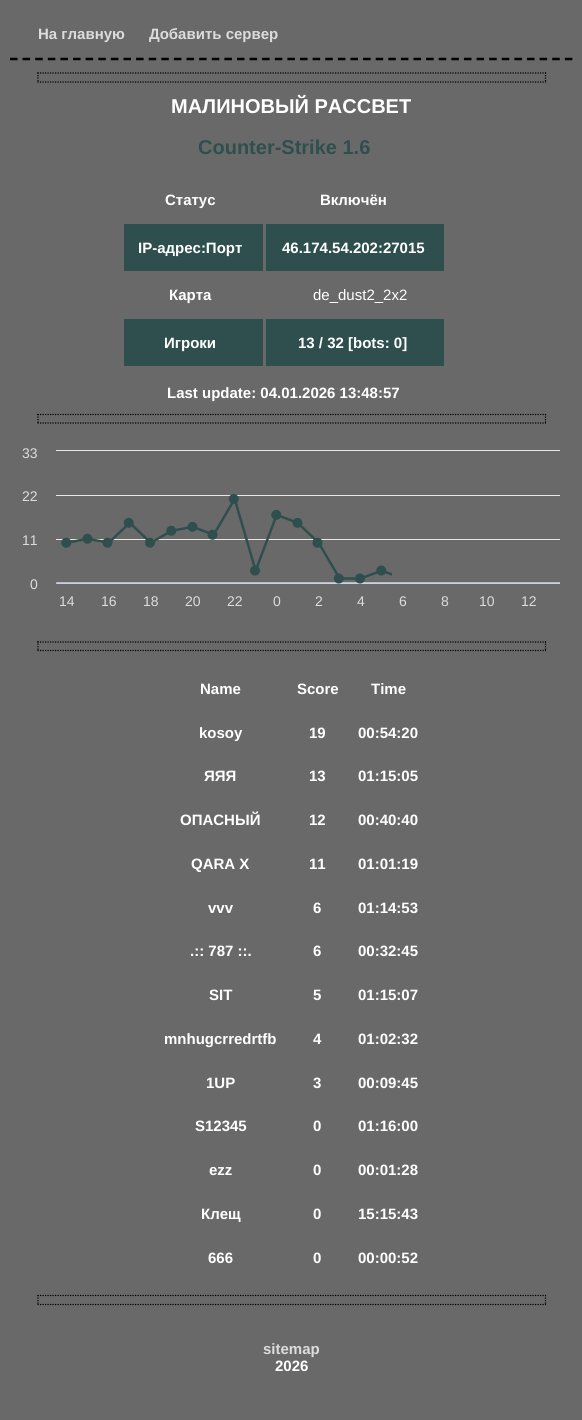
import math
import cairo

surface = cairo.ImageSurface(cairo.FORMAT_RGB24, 582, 1420)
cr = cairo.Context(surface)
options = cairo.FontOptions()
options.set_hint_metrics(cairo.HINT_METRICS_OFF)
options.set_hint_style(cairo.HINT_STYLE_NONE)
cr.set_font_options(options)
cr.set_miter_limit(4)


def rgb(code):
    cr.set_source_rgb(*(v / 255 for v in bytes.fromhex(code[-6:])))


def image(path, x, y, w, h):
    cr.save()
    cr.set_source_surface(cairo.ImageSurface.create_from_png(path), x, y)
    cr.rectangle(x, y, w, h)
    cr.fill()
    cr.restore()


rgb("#696969")
cr.paint()
cr.new_path()
cr.move_to(10, 59)
cr.line_to(572.5, 59)
rgb("#000000")
cr.set_line_width(2.5)
cr.set_dash([7.5, 5.11])
cr.stroke()
cr.new_path()
cr.move_to(37.5, 73)
cr.line_to(546, 73)
cr.set_line_width(1.2)
cr.set_dash([1.25, 1.25])
cr.stroke()
cr.new_path()
cr.move_to(545.5, 72.5)
cr.line_to(545.5, 82.5)
cr.stroke()
cr.new_path()
cr.move_to(37.5, 82)
cr.line_to(546, 82)
cr.stroke()
cr.new_path()
cr.move_to(38, 72.5)
cr.line_to(38, 82.5)
cr.stroke()
for x, y, w, h, color in [
    (124, 224, 139, 47, "#2f4f4f"),
    (124, 319, 139, 47, "#2f4f4f"),
    (266, 224, 178, 47, "#2f4f4f"),
    (266, 319, 178, 47, "#2f4f4f"),
]:
    rgb(color)
    cr.rectangle(x, y, w, h)
    cr.fill()
cr.new_path()
cr.move_to(37.5, 414.5)
cr.line_to(546, 414.5)
rgb("#000000")
cr.stroke()
cr.new_path()
cr.move_to(545.5, 414)
cr.line_to(545.5, 424)
cr.stroke()
cr.new_path()
cr.move_to(37.5, 423)
cr.line_to(546, 423)
cr.stroke()
cr.new_path()
cr.move_to(38, 414)
cr.line_to(38, 424)
cr.stroke()
image("img/1.png", 56, 450, 504, 134)
cr.new_path()
cr.move_to(37.5, 642)
cr.line_to(546, 642)
cr.stroke()
cr.new_path()
cr.move_to(545.5, 641)
cr.line_to(545.5, 651)
cr.stroke()
cr.new_path()
cr.move_to(37.5, 650.5)
cr.line_to(546, 650.5)
cr.stroke()
cr.new_path()
cr.move_to(38, 641)
cr.line_to(38, 651)
cr.stroke()
cr.new_path()
cr.move_to(37.5, 1295.5)
cr.line_to(546, 1295.5)
cr.stroke()
cr.new_path()
cr.move_to(545.5, 1295)
cr.line_to(545.5, 1305)
cr.stroke()
cr.new_path()
cr.move_to(37.5, 1304.5)
cr.line_to(546, 1304.5)
cr.stroke()
cr.new_path()
cr.move_to(38, 1295)
cr.line_to(38, 1305)
cr.stroke()
cr.select_font_face("Liberation Sans", cairo.FONT_SLANT_NORMAL, cairo.FONT_WEIGHT_BOLD)
cr.set_font_size(15)
rgb("#dcdcdc")
cr.move_to(38, 39)
cr.show_text("На главную")
cr.move_to(149, 39)
cr.show_text("Добавить сервер")
cr.set_font_size(20)
rgb("#ffffff")
cr.move_to(171, 113)
cr.show_text("МАЛИНОВЫЙ РАССВЕТ")
rgb("#2f4f4f")
cr.move_to(198, 154)
cr.show_text("Counter-Strike 1.6")
cr.set_font_size(15)
rgb("#ffffff")
for x, y, s in [
    (165, 205, "Статус"),
    (138, 253, "IP-адрес:Порт"),
    (169, 300, "Карта"),
    (164, 348, "Игроки"),
    (320, 205, "Включён"),
    (282, 253, "46.174.54.202:27015"),
]:
    cr.move_to(x, y)
    cr.show_text(s)
cr.select_font_face("Liberation Sans")
cr.move_to(313, 300)
cr.show_text("de_dust2_2x2")
cr.select_font_face("Liberation Sans", cairo.FONT_SLANT_NORMAL, cairo.FONT_WEIGHT_BOLD)
cr.move_to(298, 348)
cr.show_text("13 / 32 [bots: 0]")
cr.move_to(167, 398)
cr.show_text("Last update: 04.01.2026 13:48:57")
cr.select_font_face("Liberation Sans")
cr.set_font_size(14)
rgb("#dcdcdc")
for x, y, s in [
    (22, 458, "33"),
    (22, 501, "22"),
    (22, 545, "11"),
    (30, 589, "0"),
    (59, 606, "14"),
    (101, 606, "16"),
    (143, 606, "18"),
    (185, 606, "20"),
    (227, 606, "22"),
    (273, 606, "0"),
    (315, 606, "2"),
    (357, 606, "4"),
    (399, 606, "6"),
    (441, 606, "8"),
    (479, 606, "10"),
    (521, 606, "12"),
]:
    cr.move_to(x, y)
    cr.show_text(s)
cr.select_font_face("Liberation Sans", cairo.FONT_SLANT_NORMAL, cairo.FONT_WEIGHT_BOLD)
cr.set_font_size(15)
rgb("#ffffff")
for x, y, s in [
    (200, 694, "Name"),
    (297, 694, "Score"),
    (371, 694, "Time"),
    (199, 738, "kosoy"),
    (309, 738, "19"),
    (358, 738, "00:54:20"),
    (204, 781, "ЯЯЯ"),
    (309, 781, "13"),
    (358, 781, "01:15:05"),
    (180, 825, "ОПАСНЫЙ"),
    (309, 825, "12"),
    (358, 825, "00:40:40"),
    (191, 869, "QARA X"),
    (309, 869, "11"),
    (358, 869, "01:01:19"),
    (208, 913, "vvv"),
    (313, 913, "6"),
    (358, 913, "01:14:53"),
    (190, 956, ".:: 787 ::."),
    (313, 956, "6"),
    (358, 956, "00:32:45"),
    (209, 1000, "SIT"),
    (313, 1000, "5"),
    (358, 1000, "01:15:07"),
    (164, 1044, "mnhugcrredrtfb"),
    (313, 1044, "4"),
    (358, 1044, "01:02:32"),
    (206, 1088, "1UP"),
    (313, 1088, "3"),
    (358, 1088, "00:09:45"),
    (195, 1131, "S12345"),
    (313, 1131, "0"),
    (358, 1131, "01:16:00"),
    (209, 1175, "ezz"),
    (313, 1175, "0"),
    (358, 1175, "00:01:28"),
    (201, 1219, "Клещ"),
    (313, 1219, "0"),
    (358, 1219, "15:15:43"),
    (208, 1263, "666"),
    (313, 1263, "0"),
    (358, 1263, "00:00:52"),
]:
    cr.move_to(x, y)
    cr.show_text(s)
rgb("#dcdcdc")
cr.move_to(263, 1354)
cr.show_text("sitemap")
rgb("#ffffff")
cr.move_to(275, 1371)
cr.show_text("2026")
surface.write_to_png("page.png")
